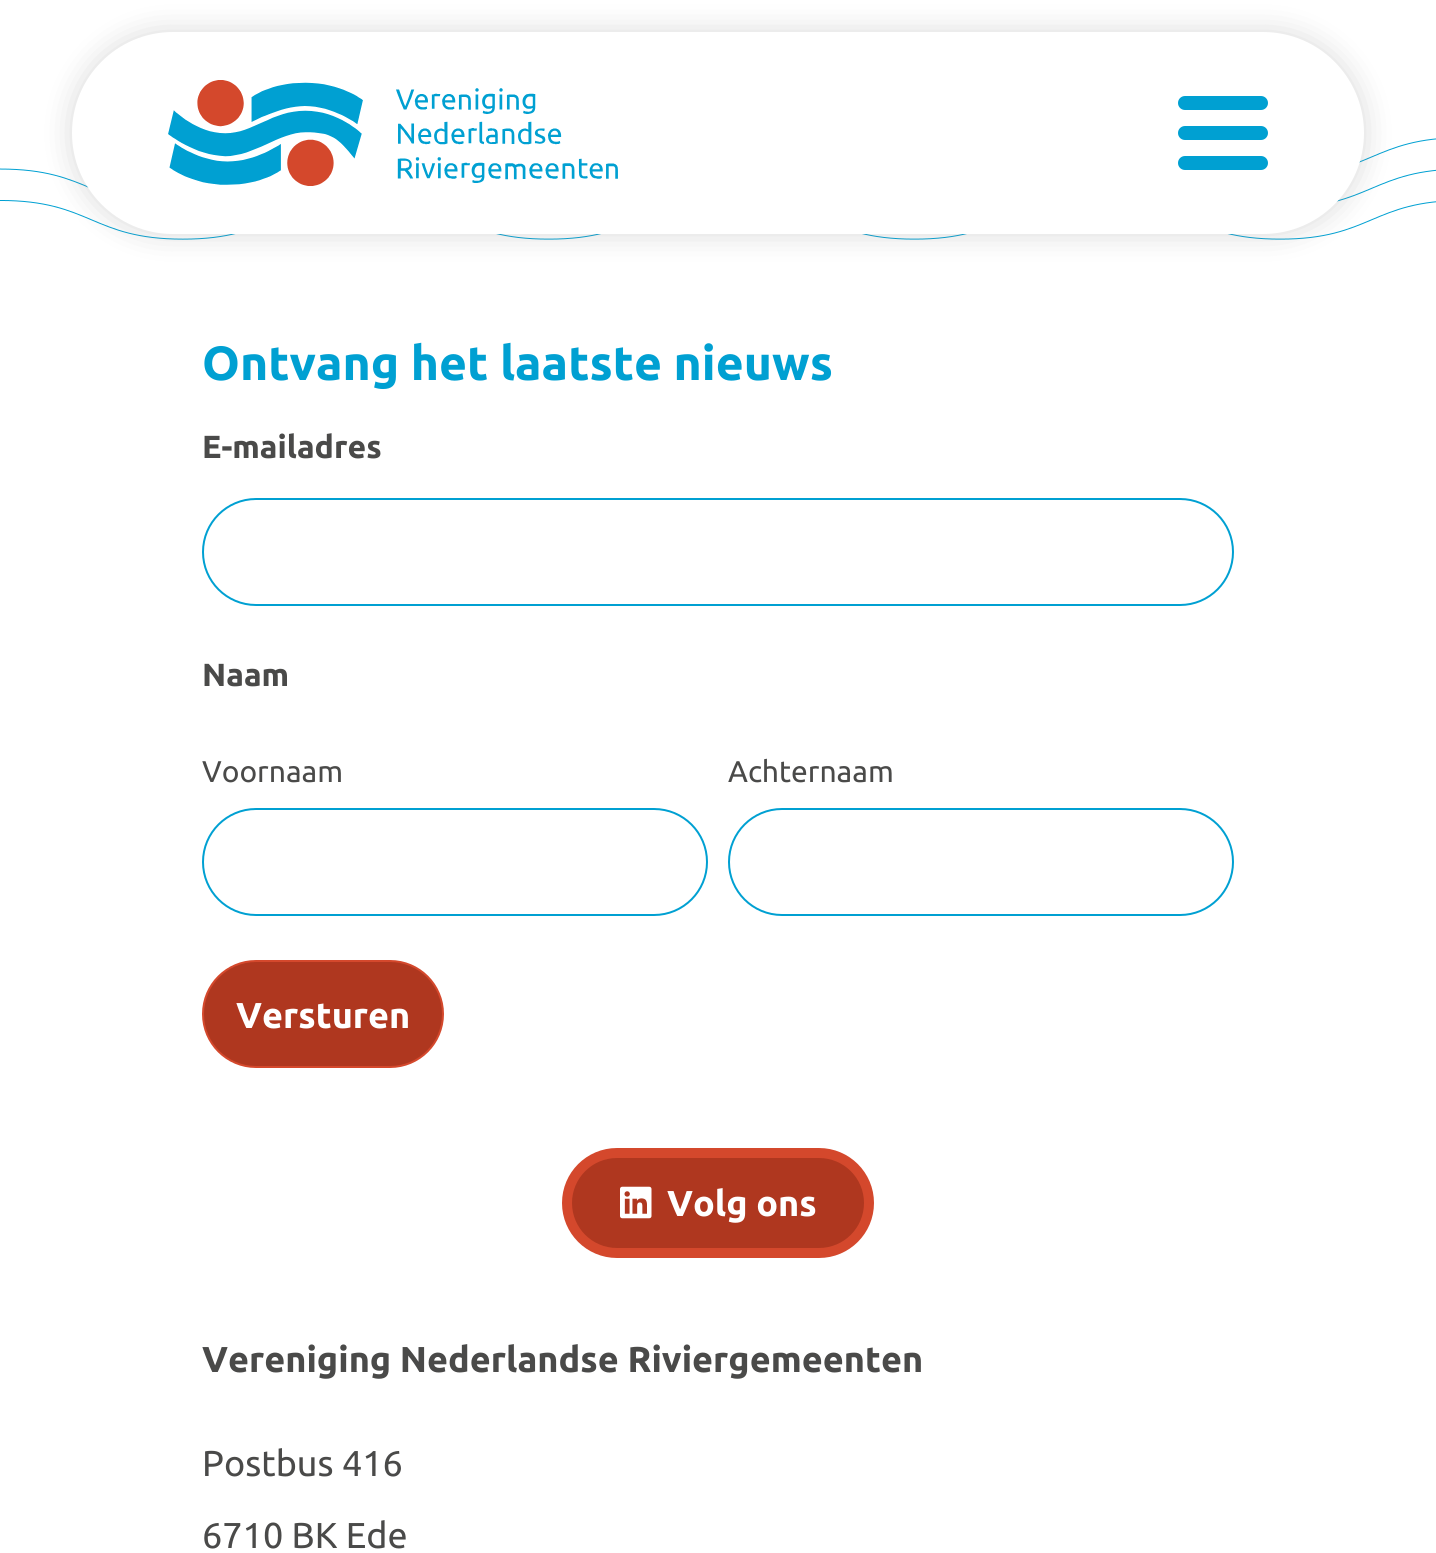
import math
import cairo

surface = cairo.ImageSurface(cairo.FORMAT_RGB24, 1436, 1553)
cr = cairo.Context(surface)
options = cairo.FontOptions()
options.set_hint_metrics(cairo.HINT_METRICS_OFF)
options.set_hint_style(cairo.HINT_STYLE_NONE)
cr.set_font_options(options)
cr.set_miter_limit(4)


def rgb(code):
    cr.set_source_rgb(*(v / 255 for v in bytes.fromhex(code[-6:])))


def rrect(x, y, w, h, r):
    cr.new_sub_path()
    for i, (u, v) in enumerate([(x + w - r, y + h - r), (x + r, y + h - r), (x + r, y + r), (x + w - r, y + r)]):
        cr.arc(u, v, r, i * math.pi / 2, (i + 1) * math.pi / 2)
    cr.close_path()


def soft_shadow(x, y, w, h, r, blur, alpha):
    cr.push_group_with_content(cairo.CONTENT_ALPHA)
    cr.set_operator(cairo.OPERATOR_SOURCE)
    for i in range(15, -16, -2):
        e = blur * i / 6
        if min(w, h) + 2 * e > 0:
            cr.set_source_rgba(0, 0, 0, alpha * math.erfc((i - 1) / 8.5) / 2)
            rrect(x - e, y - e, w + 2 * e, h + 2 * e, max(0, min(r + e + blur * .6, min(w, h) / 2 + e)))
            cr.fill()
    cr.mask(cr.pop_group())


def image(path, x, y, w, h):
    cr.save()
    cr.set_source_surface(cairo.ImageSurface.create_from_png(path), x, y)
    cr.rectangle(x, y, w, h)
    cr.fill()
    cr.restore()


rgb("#ffffff")
cr.paint()
image("img/2.png", 0, 138, 1436, 102)
rgb("#808080")
soft_shadow(72, 32, 1292, 202, 101, 15, 0.3)
rgb("#ffffff")
rrect(72, 32, 1292, 202, 101)
cr.fill()
image("img/1.png", 168, 80, 450, 106)
rgb("#00a0d2")
rrect(1178, 96, 90, 14, 7)
cr.fill()
rrect(1178, 126, 90, 14, 7)
cr.fill()
rrect(1178, 156, 90, 14, 7)
cr.fill()
rrect(203, 499, 1030, 106, 53)
cr.stroke()
rrect(203, 809, 504, 106, 53)
cr.stroke()
rrect(729, 809, 504, 106, 53)
cr.stroke()
rgb("#af371f")
rrect(203, 961, 240, 106, 53)
cr.fill_preserve()
rgb("#d4482c")
cr.stroke()
rgb("#af371f")
rrect(567, 1153, 302, 100, 50)
cr.fill_preserve()
rgb("#d4482c")
cr.set_line_width(10)
cr.stroke()
image("img/3.png", 620, 1186, 32, 33)
cr.select_font_face("Ubuntu", cairo.FONT_SLANT_NORMAL, cairo.FONT_WEIGHT_BOLD)
cr.set_font_size(48)
rgb("#00a0d2")
cr.move_to(202, 380)
cr.show_text("Ontvang het laatste nieuws")
cr.set_font_size(32)
rgb("#4a4a49")
cr.move_to(202, 458)
cr.show_text("E-mailadres")
cr.move_to(202, 686)
cr.show_text("Naam")
cr.select_font_face("Ubuntu")
cr.set_font_size(30)
cr.move_to(202, 782)
cr.show_text("Voornaam")
cr.move_to(728, 782)
cr.show_text("Achternaam")
cr.select_font_face("Ubuntu", cairo.FONT_SLANT_NORMAL, cairo.FONT_WEIGHT_BOLD)
cr.set_font_size(36)
rgb("#ffffff")
cr.move_to(236, 1028)
cr.show_text("Versturen")
cr.move_to(667, 1216)
cr.show_text("Volg ons")
rgb("#4a4a49")
cr.move_to(202, 1372)
cr.show_text("Vereniging Nederlandse Riviergemeenten")
cr.select_font_face("Ubuntu")
cr.move_to(202, 1476)
cr.show_text("Postbus 416")
cr.move_to(202, 1548)
cr.show_text("6710 BK Ede")
surface.write_to_png("page.png")
